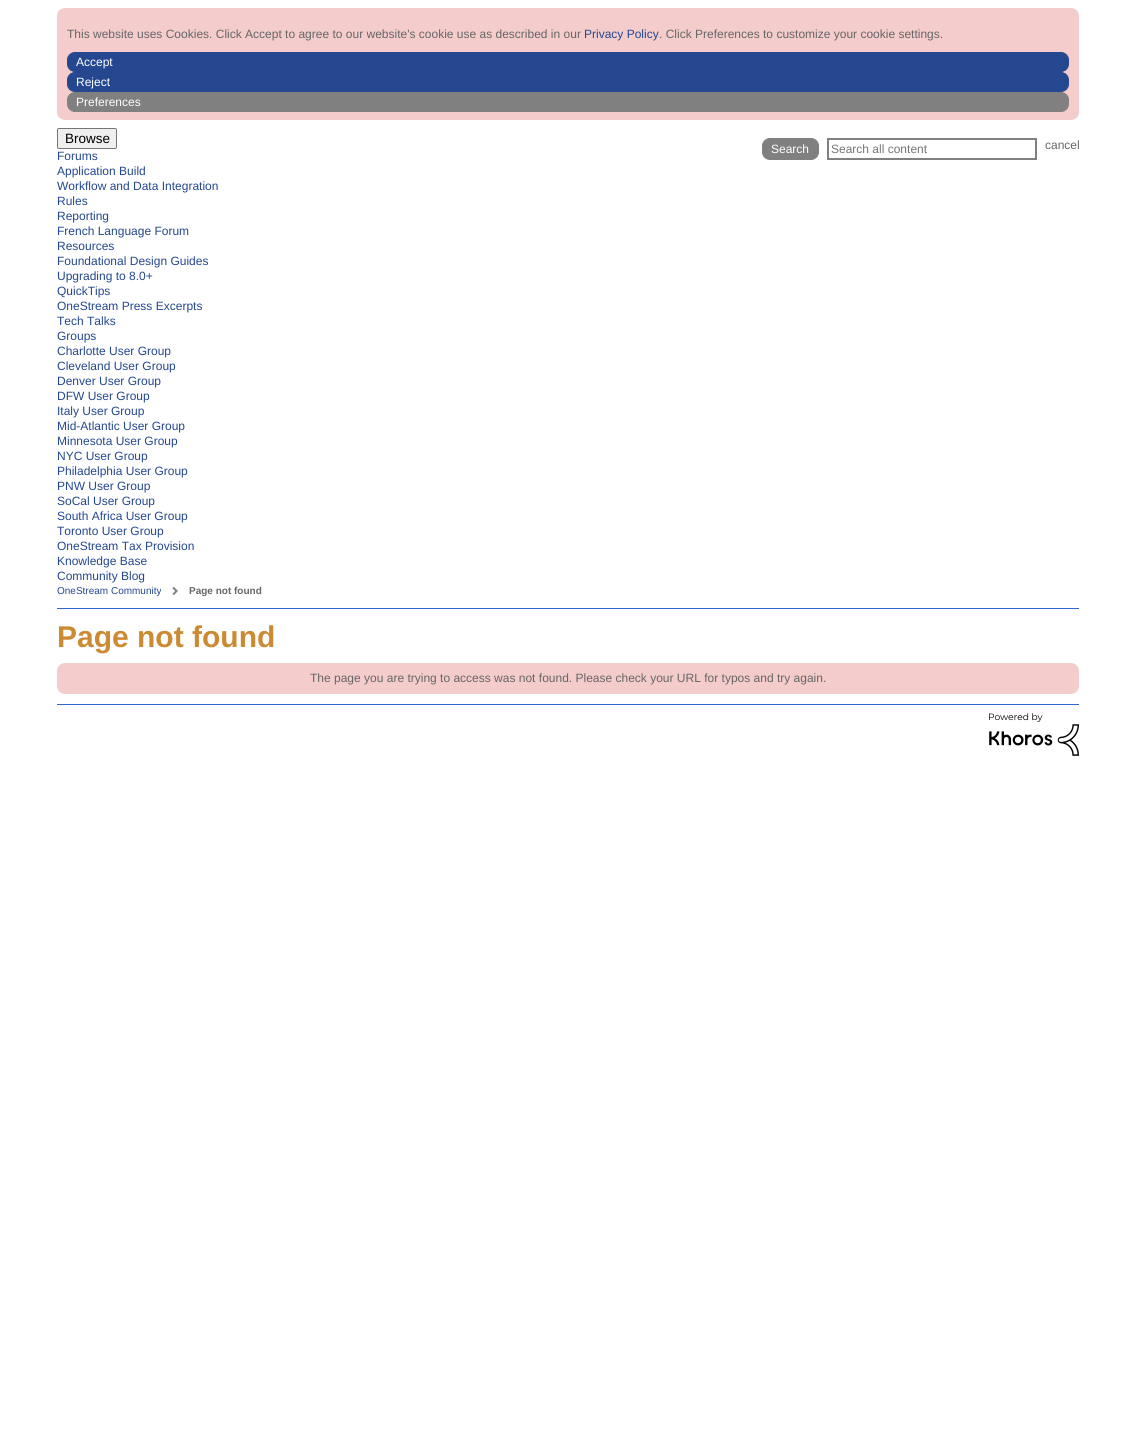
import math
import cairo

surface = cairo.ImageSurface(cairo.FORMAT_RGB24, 1136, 1438)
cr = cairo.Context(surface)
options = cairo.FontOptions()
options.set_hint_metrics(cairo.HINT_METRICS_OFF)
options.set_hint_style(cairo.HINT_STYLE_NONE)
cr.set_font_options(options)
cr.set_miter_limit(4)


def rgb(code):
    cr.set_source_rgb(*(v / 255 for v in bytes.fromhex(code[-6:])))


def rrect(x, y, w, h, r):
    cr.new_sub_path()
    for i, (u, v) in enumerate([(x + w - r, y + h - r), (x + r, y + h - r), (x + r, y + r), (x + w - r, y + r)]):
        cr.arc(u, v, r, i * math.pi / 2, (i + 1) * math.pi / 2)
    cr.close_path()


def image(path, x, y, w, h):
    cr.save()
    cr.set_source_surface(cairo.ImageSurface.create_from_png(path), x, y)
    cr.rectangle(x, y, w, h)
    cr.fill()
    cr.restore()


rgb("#ffffff")
cr.paint()
rgb("#f4cccc")
rrect(57, 8, 1022, 112, 8)
cr.fill()
rgb("#24478f")
rrect(67.5, 52.5, 1001, 19, 7.5)
cr.fill_preserve()
cr.set_line_width(1)
cr.stroke()
rrect(67.5, 72.5, 1001, 19, 7.5)
cr.fill_preserve()
cr.stroke()
rgb("#808080")
rrect(67.5, 92.5, 1001, 19, 7.5)
cr.fill_preserve()
cr.stroke()
rgb("#efefef")
rrect(57.5, 128.5, 59, 20, 1.5)
cr.fill_preserve()
rgb("#767676")
cr.stroke()
rgb("#808080")
rrect(762.5, 138.5, 56, 21, 7.5)
cr.fill_preserve()
cr.stroke()
cr.rectangle(828, 139, 208, 20)
cr.set_line_width(2)
cr.stroke()
rgb("#3366cc")
cr.rectangle(57, 608, 1022, 1)
cr.fill()
image("img/1.png", 172, 586, 6, 10)
rgb("#f4cccc")
rrect(57, 663, 1022, 31, 8)
cr.fill()
rgb("#3366cc")
cr.rectangle(57, 704, 1022, 1)
cr.fill()
image("img/2.png", 989, 713, 90, 43)
cr.select_font_face("Liberation Sans")
cr.set_font_size(12)
rgb("#666666")
cr.move_to(67, 38)
cr.show_text("This website uses Cookies. Click Accept to agree to our website's cookie use as described in our")
rgb("#24478f")
cr.move_to(584, 38)
cr.show_text("Privacy Policy")
rgb("#666666")
cr.move_to(659, 38)
cr.show_text(". Click Preferences to customize your cookie settings.")
rgb("#ffffff")
for x, y, s in [
    (76, 66, "Accept"),
    (76, 86, "Reject"),
    (76, 106, "Preferences"),
]:
    cr.move_to(x, y)
    cr.show_text(s)
cr.set_font_size(13.5)
rgb("#000000")
cr.move_to(65, 143)
cr.show_text("Browse")
cr.set_font_size(12)
rgb("#24478f")
for x, y, s in [
    (57, 160, "Forums"),
    (57, 175, "Application Build"),
    (57, 190, "Workflow and Data Integration"),
    (57, 205, "Rules"),
    (57, 220, "Reporting"),
    (57, 235, "French Language Forum"),
    (57, 250, "Resources"),
    (57, 265, "Foundational Design Guides"),
    (57, 280, "Upgrading to 8.0+"),
    (57, 295, "QuickTips"),
    (57, 310, "OneStream Press Excerpts"),
    (57, 325, "Tech Talks"),
    (57, 340, "Groups"),
    (57, 355, "Charlotte User Group"),
    (57, 370, "Cleveland User Group"),
    (57, 385, "Denver User Group"),
    (57, 400, "DFW User Group"),
    (57, 415, "Italy User Group"),
    (57, 430, "Mid-Atlantic User Group"),
    (57, 445, "Minnesota User Group"),
    (57, 460, "NYC User Group"),
    (57, 475, "Philadelphia User Group"),
    (57, 490, "PNW User Group"),
    (57, 505, "SoCal User Group"),
    (57, 520, "South Africa User Group"),
    (57, 535, "Toronto User Group"),
    (57, 550, "OneStream Tax Provision"),
    (57, 565, "Knowledge Base"),
    (57, 580, "Community Blog"),
]:
    cr.move_to(x, y)
    cr.show_text(s)
rgb("#ffffff")
cr.move_to(771, 153)
cr.show_text("Search")
rgb("#757575")
cr.move_to(831, 153)
cr.show_text("Search all content")
rgb("#666666")
cr.move_to(1045, 149)
cr.show_text("cancel")
cr.set_font_size(10)
rgb("#24478f")
cr.move_to(57, 594)
cr.show_text("OneStream Community")
cr.select_font_face("Liberation Sans", cairo.FONT_SLANT_NORMAL, cairo.FONT_WEIGHT_BOLD)
rgb("#666666")
cr.move_to(189, 594)
cr.show_text("Page not found")
cr.set_font_size(30)
rgb("#cc8b33")
cr.move_to(57, 647)
cr.show_text("Page not found")
cr.select_font_face("Liberation Sans")
cr.set_font_size(12)
rgb("#666666")
cr.move_to(310, 682)
cr.show_text("The page you are trying to access was not found. Please check your URL for typos and try again.")
surface.write_to_png("page.png")
